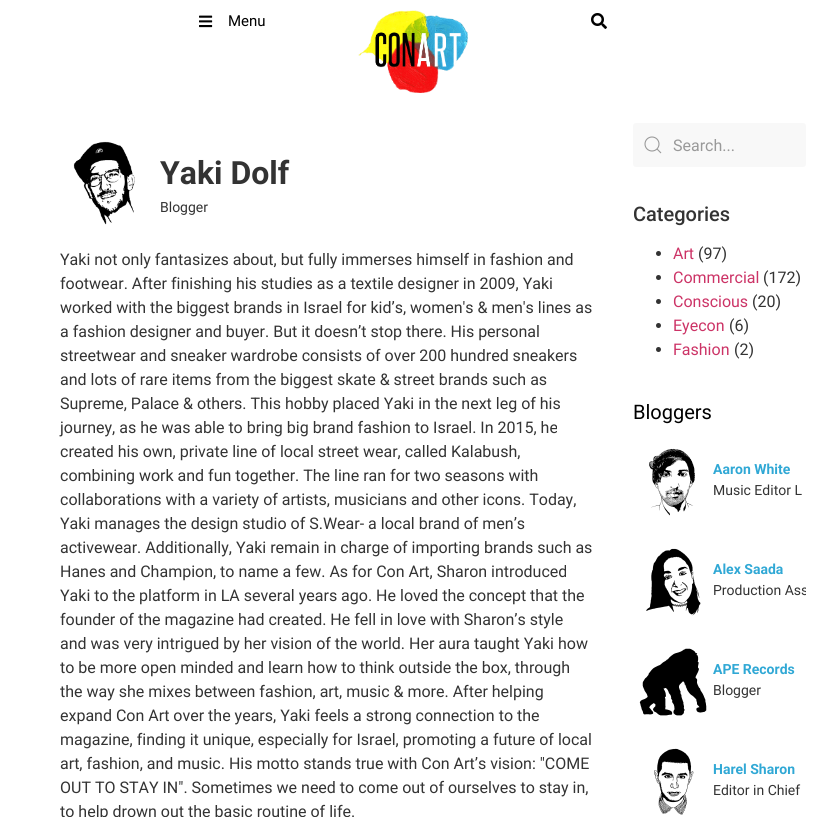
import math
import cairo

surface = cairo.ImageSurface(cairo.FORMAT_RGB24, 826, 817)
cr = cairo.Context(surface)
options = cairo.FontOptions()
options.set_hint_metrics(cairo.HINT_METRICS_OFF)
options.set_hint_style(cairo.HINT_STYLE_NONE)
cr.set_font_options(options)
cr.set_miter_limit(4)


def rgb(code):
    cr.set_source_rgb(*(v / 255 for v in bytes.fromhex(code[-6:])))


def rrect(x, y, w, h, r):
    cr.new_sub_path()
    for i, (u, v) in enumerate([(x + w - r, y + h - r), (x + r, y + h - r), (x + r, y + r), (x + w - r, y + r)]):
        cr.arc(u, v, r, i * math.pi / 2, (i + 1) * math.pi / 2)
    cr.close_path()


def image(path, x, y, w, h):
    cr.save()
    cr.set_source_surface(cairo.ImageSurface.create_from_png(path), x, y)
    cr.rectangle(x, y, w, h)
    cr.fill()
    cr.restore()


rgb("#ffffff")
cr.paint()
image("img/1.png", 199, 15, 14, 13)
image("img/2.png", 358, 10, 110, 83)
image("img/3.png", 591, 13, 16, 16)
image("img/4.png", 73, 141, 62, 84)
rgb("#f8f8f8")
rrect(633, 123, 173, 44, 3)
cr.fill()
cr.arc(652, 144, 7, 0, 2 * math.pi)
rgb("#999999")
cr.set_line_width(1.1)
cr.stroke()
cr.new_path()
cr.move_to(657, 149)
cr.line_to(661, 153)
cr.close_path()
cr.stroke()
rgb("#333333")
cr.arc(658.5, 253.5, 2.5, 0, 2 * math.pi)
cr.fill()
cr.arc(658.5, 277.5, 2.5, 0, 2 * math.pi)
cr.fill()
cr.arc(658.5, 301.5, 2.5, 0, 2 * math.pi)
cr.fill()
cr.arc(658.5, 325.5, 2.5, 0, 2 * math.pi)
cr.fill()
cr.arc(658.5, 349.5, 2.5, 0, 2 * math.pi)
cr.fill()
image("img/5.png", 649, 448, 46, 68)
image("img/6.png", 646, 548, 55, 68)
image("img/7.png", 639, 648, 68, 68)
image("img/8.png", 654, 748, 40, 67)
cr.select_font_face("Roboto")
cr.set_font_size(15)
rgb("#000000")
cr.move_to(228, 26)
cr.show_text("Menu")
cr.select_font_face("Roboto", cairo.FONT_SLANT_NORMAL, cairo.FONT_WEIGHT_BOLD)
cr.set_font_size(32)
rgb("#333333")
cr.move_to(160, 184)
cr.show_text("Yaki Dolf")
cr.select_font_face("Roboto")
cr.set_font_size(14)
cr.move_to(160, 212)
cr.show_text("Blogger")
cr.set_font_size(16)
for x, y, s in [
    (60, 265, "Yaki not only fantasizes about, but fully immerses himself in fashion and"),
    (60, 289, "footwear. After finishing his studies as a textile designer in 2009, Yaki"),
    (60, 313, "worked with the biggest brands in Israel for kid’s, women's & men's lines as"),
    (60, 337, "a fashion designer and buyer. But it doesn’t stop there. His personal"),
    (60, 361, "streetwear and sneaker wardrobe consists of over 200 hundred sneakers"),
    (60, 385, "and lots of rare items from the biggest skate & street brands such as"),
    (60, 409, "Supreme, Palace & others. This hobby placed Yaki in the next leg of his"),
    (60, 433, "journey, as he was able to bring big brand fashion to Israel. In 2015, he"),
    (60, 457, "created his own, private line of local street wear, called Kalabush,"),
    (60, 481, "combining work and fun together. The line ran for two seasons with"),
    (60, 505, "collaborations with a variety of artists, musicians and other icons. Today,"),
    (60, 529, "Yaki manages the design studio of S.Wear- a local brand of men’s"),
    (60, 553, "activewear. Additionally, Yaki remain in charge of importing brands such as"),
    (60, 577, "Hanes and Champion, to name a few. As for Con Art, Sharon introduced"),
    (60, 601, "Yaki to the platform in LA several years ago. He loved the concept that the"),
    (60, 625, "founder of the magazine had created. He fell in love with Sharon’s style"),
    (60, 649, "and was very intrigued by her vision of the world. Her aura taught Yaki how"),
    (60, 673, "to be more open minded and learn how to think outside the box, through"),
    (60, 697, "the way she mixes between fashion, art, music & more. After helping"),
    (60, 721, "expand Con Art over the years, Yaki feels a strong connection to the"),
    (60, 745, "magazine, finding it unique, especially for Israel, promoting a future of local"),
    (60, 769, "art, fashion, and music. His motto stands true with Con Art’s vision: \"COME"),
    (60, 793, "OUT TO STAY IN\". Sometimes we need to come out of ourselves to stay in,"),
    (60, 817, "to help drown out the basic routine of life."),
]:
    cr.move_to(x, y)
    cr.show_text(s)
rgb("#999999")
cr.move_to(673, 151)
cr.show_text("Search...")
cr.select_font_face("Roboto Medium")
cr.set_font_size(20)
rgb("#333333")
cr.move_to(633, 221)
cr.show_text("Categories")
cr.select_font_face("Roboto")
cr.set_font_size(16)
rgb("#cc3366")
cr.move_to(673, 259)
cr.show_text("Art")
rgb("#333333")
cr.move_to(698, 259)
cr.show_text("(97)")
rgb("#cc3366")
cr.move_to(673, 283)
cr.show_text("Commercial")
rgb("#333333")
cr.move_to(763, 283)
cr.show_text("(172)")
rgb("#cc3366")
cr.move_to(673, 307)
cr.show_text("Conscious")
rgb("#333333")
cr.move_to(752, 307)
cr.show_text("(20)")
rgb("#cc3366")
cr.move_to(673, 331)
cr.show_text("Eyecon")
rgb("#333333")
cr.move_to(729, 331)
cr.show_text("(6)")
rgb("#cc3366")
cr.move_to(673, 355)
cr.show_text("Fashion")
rgb("#333333")
cr.move_to(734, 355)
cr.show_text("(2)")
cr.set_font_size(20)
rgb("#000000")
cr.move_to(633, 419)
cr.show_text("Bloggers")
cr.select_font_face("Roboto", cairo.FONT_SLANT_NORMAL, cairo.FONT_WEIGHT_BOLD)
cr.set_font_size(14)
rgb("#30a8d5")
cr.move_to(713, 474)
cr.show_text("Aaron White")
cr.select_font_face("Roboto")
rgb("#333333")
cr.move_to(713, 495)
cr.show_text("Music Editor L")
cr.select_font_face("Roboto", cairo.FONT_SLANT_NORMAL, cairo.FONT_WEIGHT_BOLD)
rgb("#30a8d5")
cr.move_to(713, 574)
cr.show_text("Alex Saada")
cr.save()
cr.rectangle(633, 442, 173, 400)
cr.clip()
cr.select_font_face("Roboto")
rgb("#333333")
cr.move_to(713, 595)
cr.show_text("Production Ass")
cr.restore()
cr.move_to(713, 674)
cr.show_text("APE Records")
cr.select_font_face("Roboto")
rgb("#333333")
cr.move_to(713, 695)
cr.show_text("Blogger")
cr.select_font_face("Roboto", cairo.FONT_SLANT_NORMAL, cairo.FONT_WEIGHT_BOLD)
rgb("#30a8d5")
cr.move_to(713, 774)
cr.show_text("Harel Sharon")
cr.select_font_face("Roboto")
rgb("#333333")
cr.move_to(713, 795)
cr.show_text("Editor in Chief")
surface.write_to_png("page.png")
